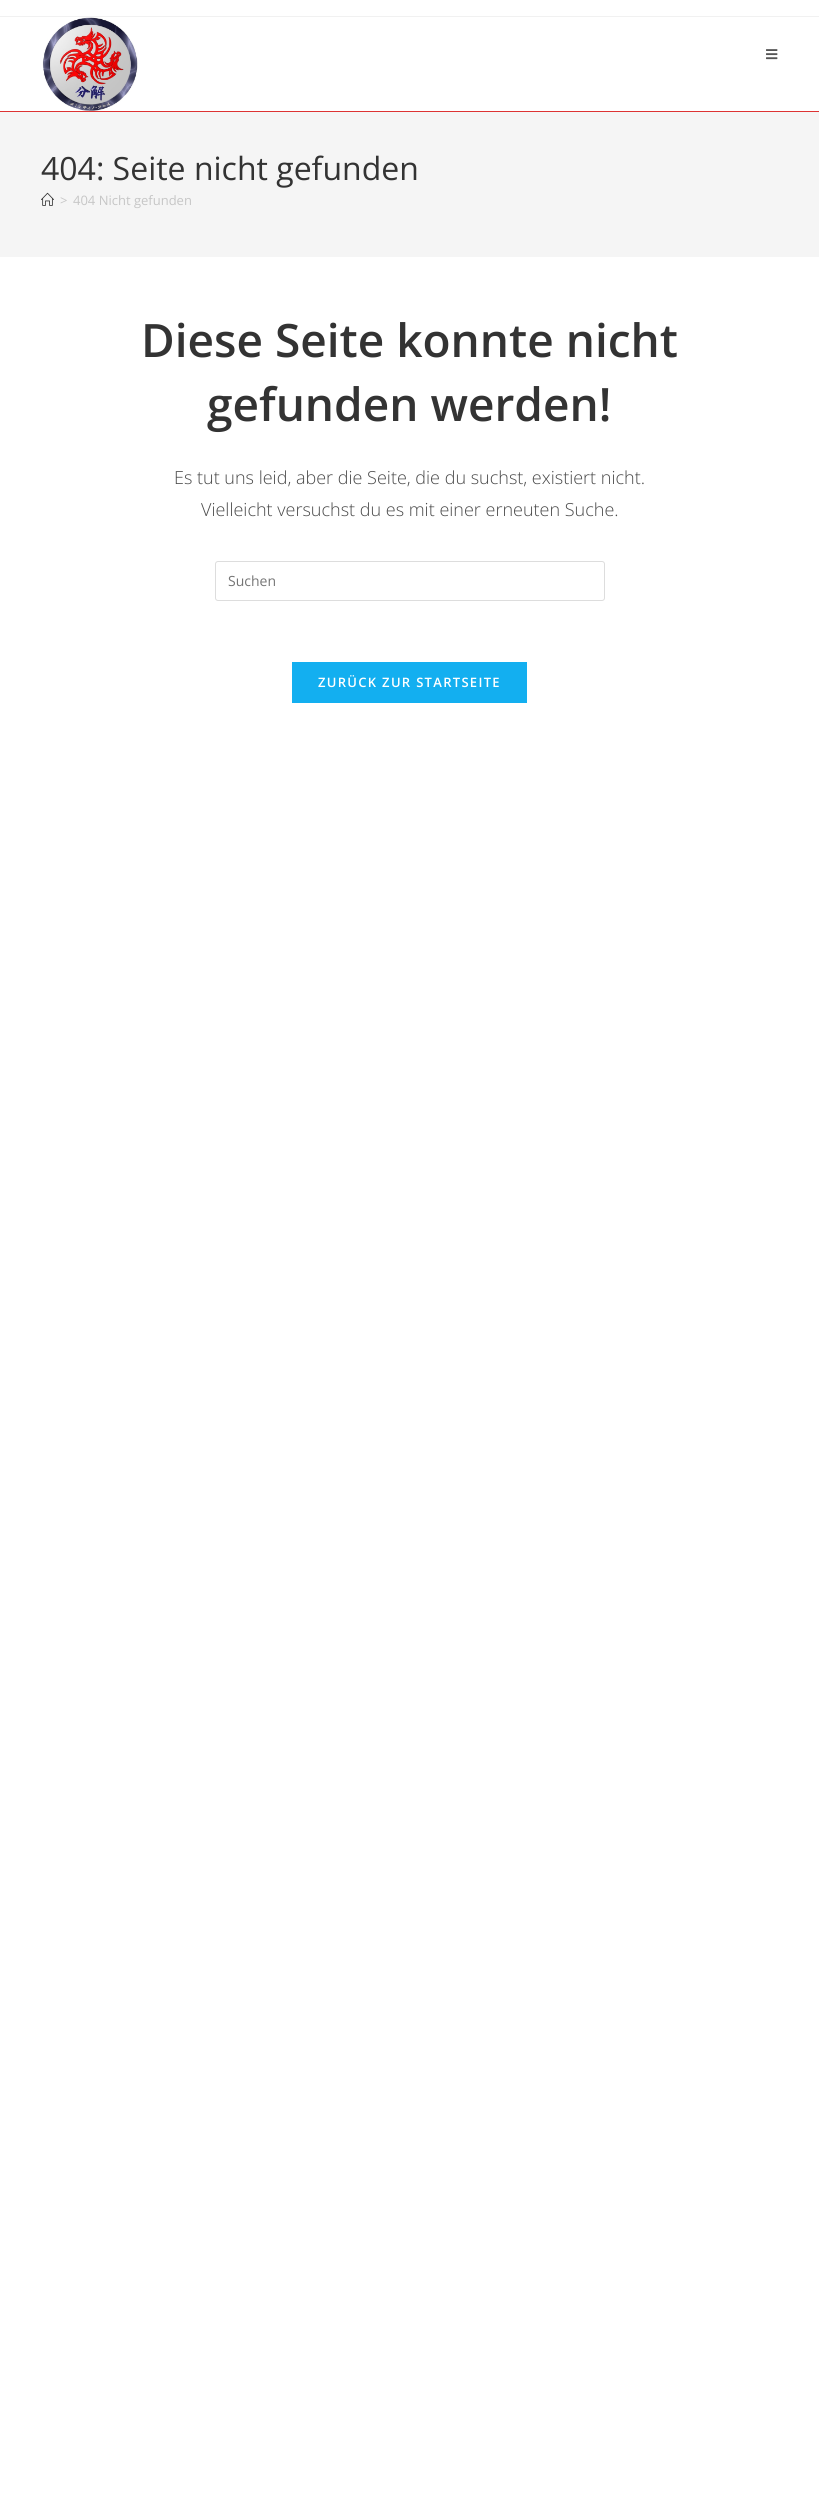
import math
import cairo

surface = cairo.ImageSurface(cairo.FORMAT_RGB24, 819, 2506)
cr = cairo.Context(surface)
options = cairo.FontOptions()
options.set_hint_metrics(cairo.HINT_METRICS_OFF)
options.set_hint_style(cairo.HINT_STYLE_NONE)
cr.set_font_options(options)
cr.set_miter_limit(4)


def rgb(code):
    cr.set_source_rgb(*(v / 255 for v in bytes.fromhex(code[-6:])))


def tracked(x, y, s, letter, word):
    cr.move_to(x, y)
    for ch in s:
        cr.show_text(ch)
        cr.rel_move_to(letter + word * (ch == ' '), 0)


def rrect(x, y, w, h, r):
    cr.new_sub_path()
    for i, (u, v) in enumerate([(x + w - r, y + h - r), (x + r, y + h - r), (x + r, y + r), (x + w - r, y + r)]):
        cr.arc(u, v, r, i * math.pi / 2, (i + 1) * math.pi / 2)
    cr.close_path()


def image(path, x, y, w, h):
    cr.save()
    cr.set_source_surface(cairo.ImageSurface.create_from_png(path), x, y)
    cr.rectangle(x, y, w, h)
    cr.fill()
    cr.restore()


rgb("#ffffff")
cr.paint()
rgb("#f1f1f1")
cr.rectangle(0, 16, 819, 1)
cr.fill()
rgb("#dd3333")
cr.rectangle(0, 111, 819, 1)
cr.fill()
image("img/1.png", 42, 17, 96, 94)
image("img/2.png", 766, 49, 12, 11)
rgb("#f5f5f5")
cr.rectangle(0, 112, 819, 145)
cr.fill()
image("img/3.png", 41, 192, 13, 14)
rrect(215.5, 561.5, 389, 39, 2.5)
rgb("#dddddd")
cr.set_line_width(1)
cr.stroke()
rgb("#13aff0")
cr.rectangle(292, 662, 235, 41)
cr.fill()
cr.select_font_face("Open Sans")
cr.set_font_size(32)
rgb("#333333")
cr.move_to(41, 180)
cr.show_text("404: Seite nicht gefunden")
cr.set_font_size(13)
rgb("#c6c6c6")
cr.move_to(60, 205)
cr.show_text(">")
cr.move_to(73, 205)
cr.show_text("404 Nicht gefunden")
cr.select_font_face("Open Sans SemiBold")
cr.set_font_size(46)
rgb("#333333")
cr.move_to(141, 357)
cr.show_text("Diese Seite konnte nicht")
cr.move_to(207, 421)
cr.show_text("gefunden werden!")
cr.select_font_face("Open Sans Light")
cr.set_font_size(18)
rgb("#4a4a4a")
cr.move_to(174, 484)
cr.show_text("Es tut uns leid, aber die Seite, die du suchst, existiert nicht.")
cr.move_to(201, 516)
cr.show_text("Vielleicht versuchst du es mit einer erneuten Suche.")
cr.select_font_face("Open Sans")
cr.set_font_size(14)
rgb("#757575")
cr.move_to(228, 586)
cr.show_text("Suchen")
cr.select_font_face("Open Sans SemiBold")
cr.set_font_size(13)
rgb("#ffffff")
tracked(318, 687, "ZURÜCK ZUR STARTSEITE", 1.3, 0)
surface.write_to_png("page.png")
